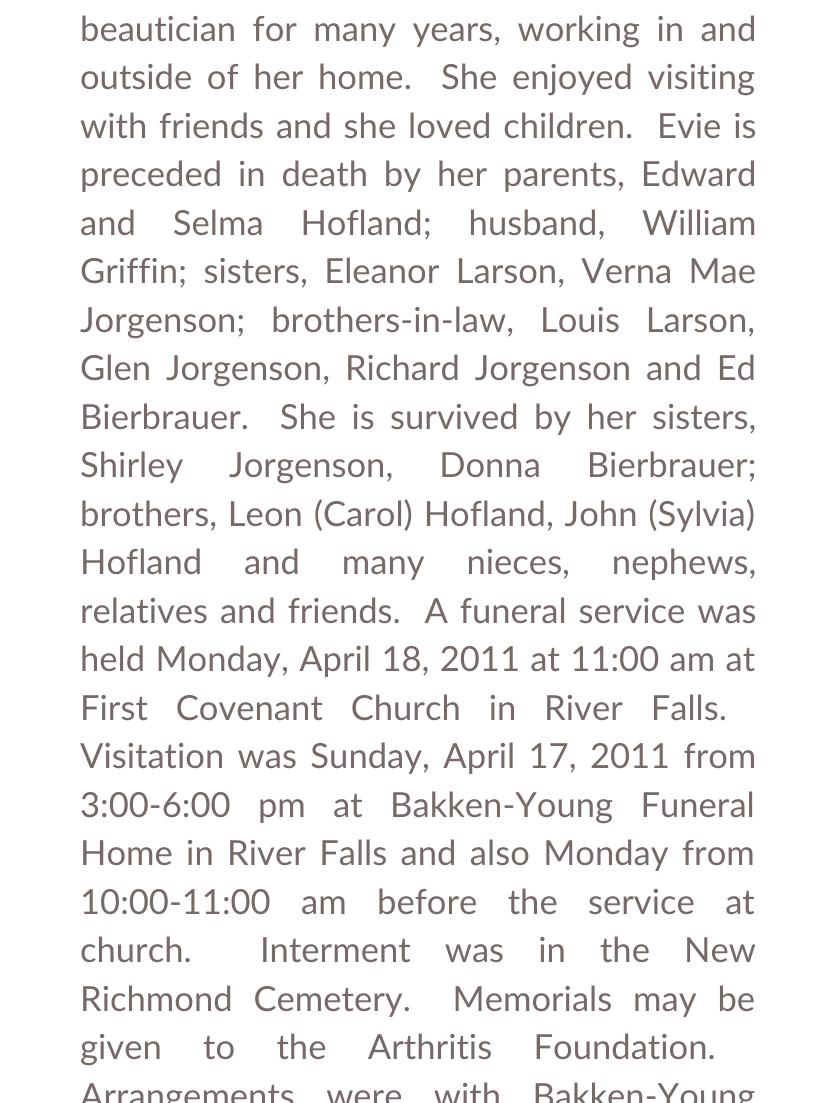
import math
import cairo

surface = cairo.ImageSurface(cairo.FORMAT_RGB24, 836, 1103)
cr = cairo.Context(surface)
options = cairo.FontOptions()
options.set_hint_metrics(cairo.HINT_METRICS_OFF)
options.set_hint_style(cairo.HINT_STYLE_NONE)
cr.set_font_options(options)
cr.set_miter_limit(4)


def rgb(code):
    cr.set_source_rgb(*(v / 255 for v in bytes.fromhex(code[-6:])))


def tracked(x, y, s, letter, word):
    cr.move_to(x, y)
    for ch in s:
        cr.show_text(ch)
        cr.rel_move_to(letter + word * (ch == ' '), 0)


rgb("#ffffff")
cr.paint()
cr.select_font_face("Lato")
cr.set_font_size(34.6)
rgb("#766966")
tracked(80, 41, "beautician for many years, working in and", 0, 7.5)
tracked(80, 89, "outside of her home.  She enjoyed visiting", 0, 5.75)
tracked(80, 138, "with friends and she loved children.  Evie is", 0, 3)
tracked(80, 186, "preceded in death by her parents, Edward", 0, 7)
tracked(80, 235, "and Selma Hofland; husband, William", 0, 28)
tracked(80, 283, "Griffin; sisters, Eleanor Larson, Verna Mae", 0, 7.5)
tracked(80, 332, "Jorgenson; brothers-in-law, Louis Larson,", 0, 17)
tracked(80, 380, "Glen Jorgenson, Richard Jorgenson and Ed", 0, 6)
tracked(80, 429, "Bierbrauer.  She is survived by her sisters,", 0, 6.5)
tracked(80, 477, "Shirley Jorgenson, Donna Bierbrauer;", 0, 37)
tracked(80, 526, "brothers, Leon (Carol) Hofland, John (Sylvia)", 0, 2)
tracked(80, 574, "Hofland and many nieces, nephews,", 0, 33)
tracked(80, 623, "relatives and friends.  A funeral service was", 0, 3)
tracked(80, 671, "held Monday, April 18, 2011 at 11:00 am at", 0, 1.5)
tracked(80, 720, "First Covenant Church in River Falls.", 0, 19)
tracked(80, 768, "Visitation was Sunday, April 17, 2011 from", 0, 4.5)
tracked(80, 817, "3:00-6:00 pm at Bakken-Young Funeral", 0, 18.5)
tracked(80, 865, "Home in River Falls and also Monday from", 0, 4.5)
tracked(80, 914, "10:00-11:00 am before the service at", 0, 21.5)
tracked(80, 962, "church.  Interment was in the New", 0, 25.25)
tracked(80, 1011, "Richmond Cemetery.  Memorials may be", 0, 12)
tracked(80, 1059, "given to the Arthritis Foundation.", 0, 32.5)
tracked(80, 1108, "Arrangements were with Bakken-Young", 0, 22.5)
surface.write_to_png("page.png")
